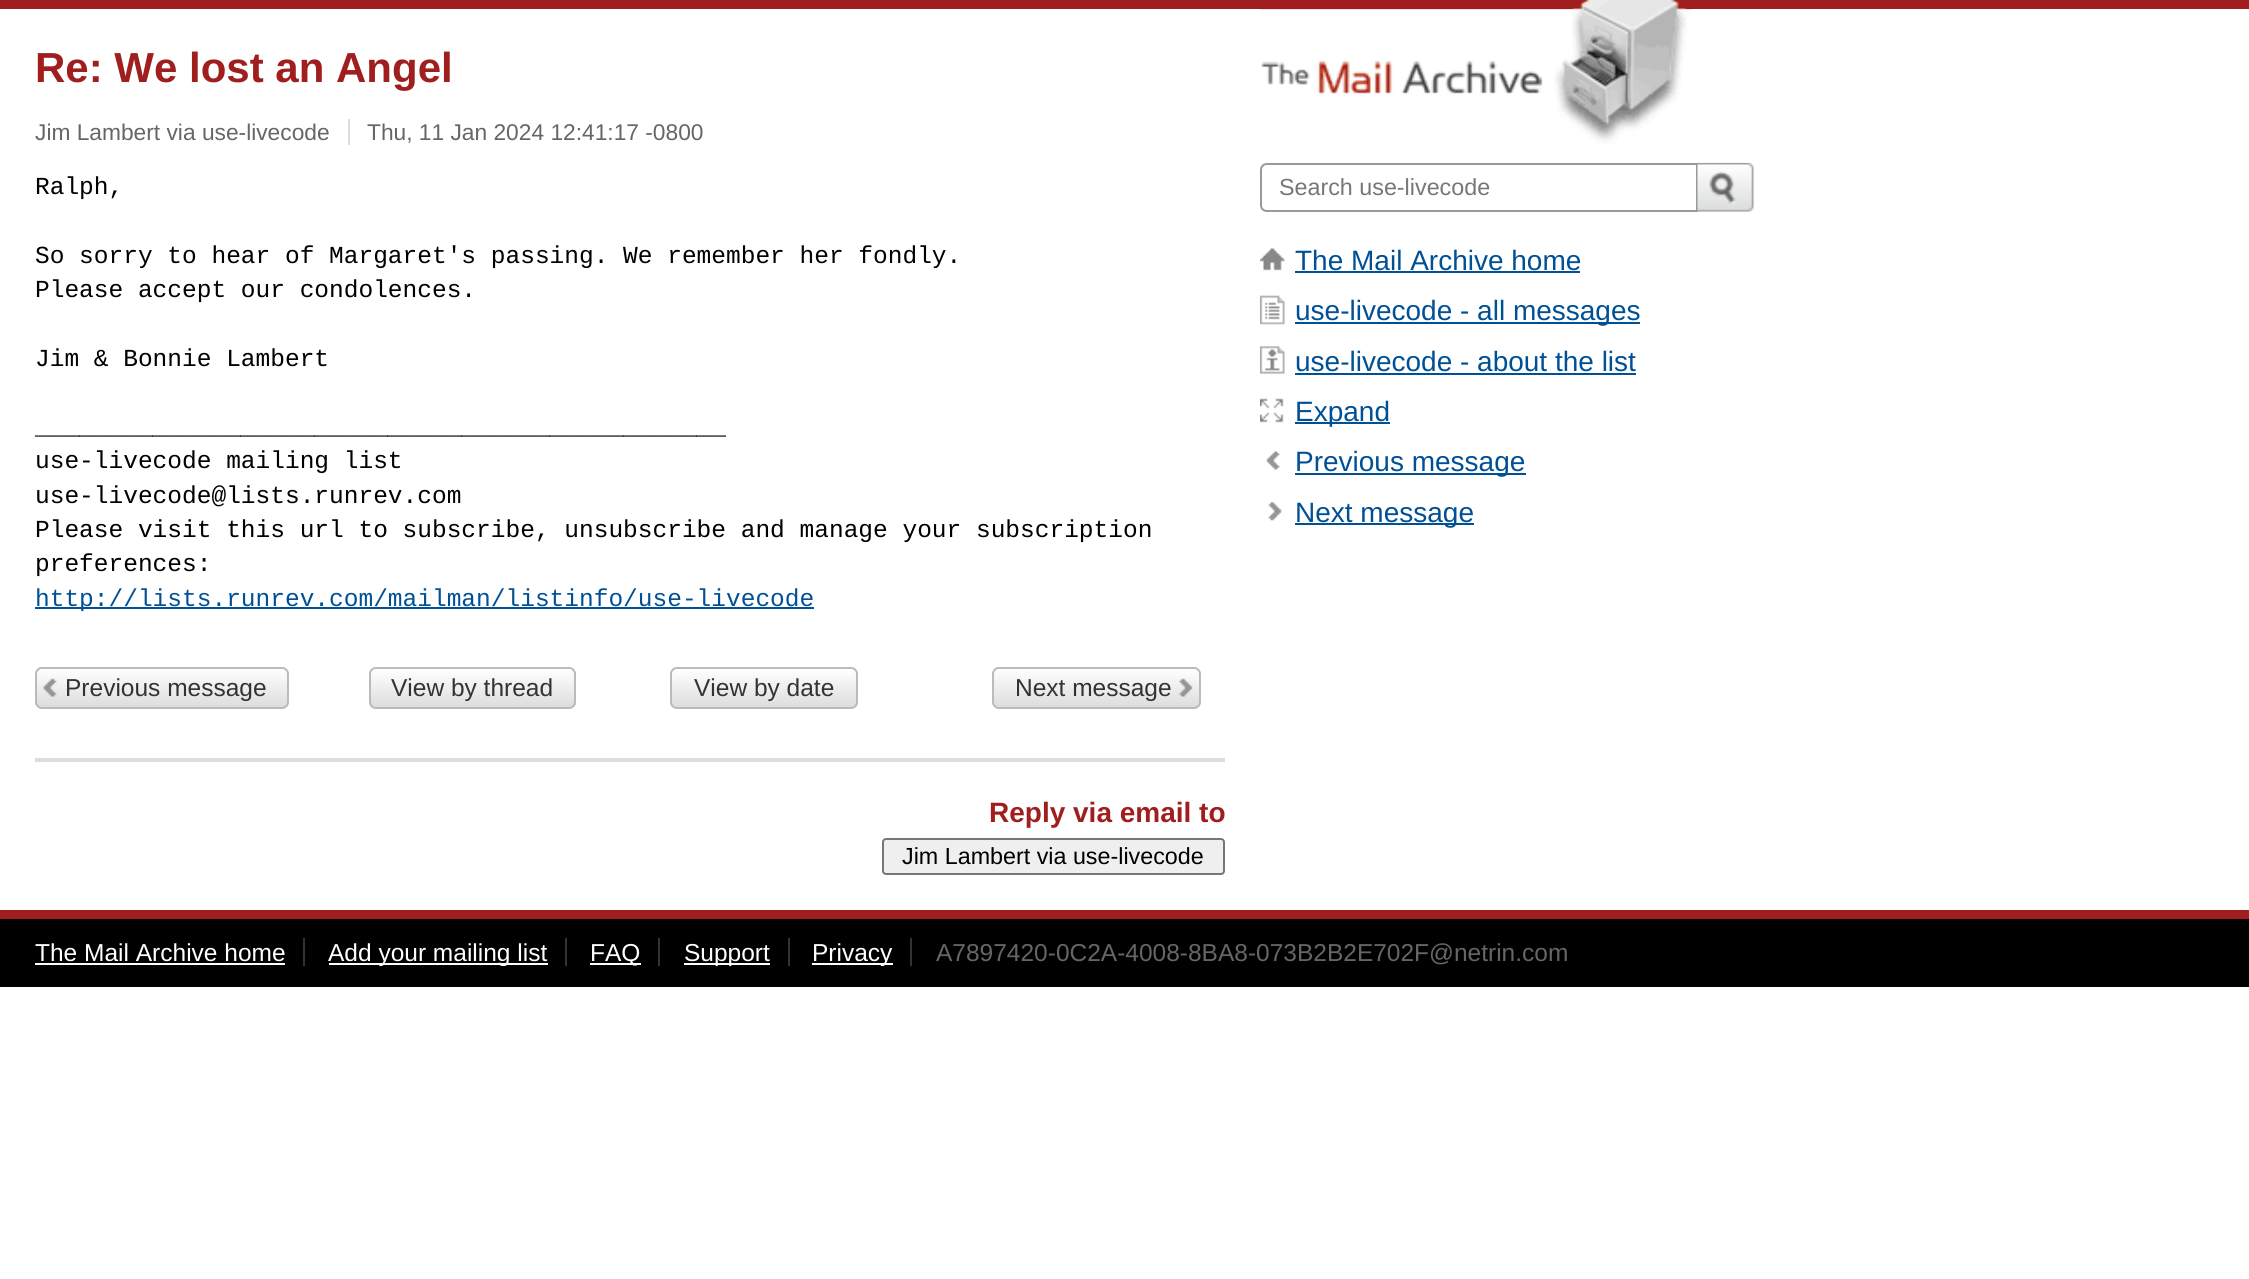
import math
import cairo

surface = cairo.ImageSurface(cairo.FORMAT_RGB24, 2249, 1279)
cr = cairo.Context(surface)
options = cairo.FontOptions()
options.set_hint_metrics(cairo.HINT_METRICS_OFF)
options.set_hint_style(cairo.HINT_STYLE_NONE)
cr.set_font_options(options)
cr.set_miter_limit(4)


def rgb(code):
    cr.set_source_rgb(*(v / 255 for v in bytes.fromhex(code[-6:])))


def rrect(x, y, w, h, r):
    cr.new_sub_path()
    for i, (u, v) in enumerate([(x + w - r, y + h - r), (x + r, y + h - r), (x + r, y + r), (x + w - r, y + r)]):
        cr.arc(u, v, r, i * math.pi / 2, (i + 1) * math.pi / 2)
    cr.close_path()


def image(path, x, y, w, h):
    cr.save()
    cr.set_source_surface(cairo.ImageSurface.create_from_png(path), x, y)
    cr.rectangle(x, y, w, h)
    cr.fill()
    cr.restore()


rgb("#ffffff")
cr.paint()
for x, y, w, h, color in [
    (0, 0, 2249, 9, "#a01e1e"),
    (348, 119, 2, 26, "#dddddd"),
    (35, 607, 779, 2, "#005096"),
]:
    rgb(color)
    cr.rectangle(x, y, w, h)
    cr.fill()
image("img/1.png", 35, 667, 254, 42)
rrect(36, 668, 252, 40, 6)
rgb("#bbbbbb")
cr.stroke()
cr.save()
rrect(369, 667, 207, 42, 7)
cr.clip()
gradient = cairo.LinearGradient(473, 669, 473, 707)
gradient.add_color_stop_rgba(0, 1, 1, 1, 1)
gradient.add_color_stop_rgba(1, 0.867, 0.867, 0.867, 1)
cr.set_source(gradient)
cr.rectangle(369, 669, 207, 38)
cr.fill()
cr.restore()
rrect(370, 668, 205, 40, 6)
cr.stroke()
cr.save()
rrect(670, 667, 188, 42, 7)
cr.clip()
gradient = cairo.LinearGradient(764, 669, 764, 707)
gradient.add_color_stop_rgba(0, 1, 1, 1, 1)
gradient.add_color_stop_rgba(1, 0.867, 0.867, 0.867, 1)
cr.set_source(gradient)
cr.rectangle(670, 669, 188, 38)
cr.fill()
cr.restore()
rrect(671, 668, 186, 40, 6)
cr.stroke()
image("img/2.png", 992, 667, 208, 42)
rrect(993, 668, 207, 40, 6)
cr.stroke()
rgb("#dddddd")
cr.rectangle(35, 758, 1190, 4)
cr.fill()
rgb("#efefef")
rrect(883, 839, 341, 35, 3)
cr.fill_preserve()
rgb("#767676")
cr.stroke()
image("img/3.png", 1260, 0, 433, 144)
cr.new_path()
cr.move_to(1267, 164)
cr.line_to(1697, 164)
cr.line_to(1697, 211)
cr.line_to(1267, 211)
cr.curve_to(1263.5, 211, 1261, 208.5, 1261, 205)
cr.line_to(1261, 170)
cr.curve_to(1261, 166.5, 1263.5, 164, 1267, 164)
cr.close_path()
rgb("#999999")
cr.stroke()
image("img/4.png", 1697, 162, 57, 50)
image("img/5.png", 1260, 248, 25, 23)
rgb("#005096")
cr.rectangle(1295, 271, 285, 2)
cr.fill()
image("img/6.png", 1260, 295, 25, 30)
cr.rectangle(1295, 322, 345, 2)
cr.fill()
image("img/7.png", 1260, 346, 25, 28)
cr.rectangle(1295, 373, 341, 2)
cr.fill()
image("img/8.png", 1260, 398, 24, 25)
cr.rectangle(1295, 422, 95, 2)
cr.fill()
image("img/9.png", 1266, 451, 14, 19)
cr.rectangle(1295, 473, 231, 2)
cr.fill()
image("img/10.png", 1268, 502, 14, 19)
for x, y, w, h, color in [
    (1295, 523, 179, 2, "#005096"),
    (0, 919, 2249, 68, "#000000"),
    (0, 910, 2249, 9, "#a01e1e"),
    (303, 938, 2, 28, "#333333"),
    (35, 963, 250, 2, "#ffffff"),
    (565, 938, 2, 28, "#333333"),
    (329, 963, 219, 2, "#ffffff"),
    (658, 938, 2, 28, "#333333"),
    (590, 963, 51, 2, "#ffffff"),
    (788, 938, 2, 28, "#333333"),
    (684, 963, 86, 2, "#ffffff"),
    (910, 938, 2, 28, "#333333"),
    (812, 963, 81, 2, "#ffffff"),
]:
    rgb(color)
    cr.rectangle(x, y, w, h)
    cr.fill()
cr.select_font_face("Liberation Sans", cairo.FONT_SLANT_NORMAL, cairo.FONT_WEIGHT_BOLD)
cr.set_font_size(42)
rgb("#a01e1e")
cr.move_to(35, 82)
cr.show_text("Re: We lost an Angel")
cr.select_font_face("Liberation Sans")
cr.set_font_size(22.75)
rgb("#666666")
cr.move_to(35, 140)
cr.show_text("Jim Lambert via use-livecode")
cr.move_to(367, 140)
cr.show_text("Thu, 11 Jan 2024 12:41:17 -0800")
cr.select_font_face("Liberation Mono")
cr.set_font_size(24.5)
rgb("#000000")
for x, y, s in [
    (35, 194, "Ralph,"),
    (35, 263, "So sorry to hear of Margaret's passing. We remember her fondly."),
    (35, 297, "Please accept our condolences."),
    (35, 366, "Jim & Bonnie Lambert"),
    (35, 434, "_______________________________________________"),
    (35, 468, "use-livecode mailing list"),
    (35, 503, "use-livecode@lists.runrev.com"),
    (35, 537, "Please visit this url to subscribe, unsubscribe and manage your subscription"),
    (35, 571, "preferences:"),
]:
    cr.move_to(x, y)
    cr.show_text(s)
rgb("#005096")
cr.move_to(35, 606)
cr.show_text("http://lists.runrev.com/mailman/listinfo/use-livecode")
cr.select_font_face("Liberation Sans")
rgb("#333333")
for x, y, s in [
    (65, 696, "Previous message"),
    (391, 696, "View by thread"),
    (694, 696, "View by date"),
    (1015, 696, "Next message"),
]:
    cr.move_to(x, y)
    cr.show_text(s)
cr.select_font_face("Liberation Sans", cairo.FONT_SLANT_NORMAL, cairo.FONT_WEIGHT_BOLD)
cr.set_font_size(28)
rgb("#a01e1e")
cr.move_to(989, 822)
cr.show_text("Reply via email to")
cr.select_font_face("Liberation Sans")
cr.set_font_size(23.3)
rgb("#000000")
cr.move_to(902, 864)
cr.show_text("Jim Lambert via use-livecode")
rgb("#777777")
cr.move_to(1279, 195)
cr.show_text("Search use-livecode")
cr.set_font_size(28)
rgb("#005096")
for x, y, s in [
    (1295, 270, "The Mail Archive home"),
    (1295, 320, "use-livecode - all messages"),
    (1295, 371, "use-livecode - about the list"),
    (1295, 421, "Expand"),
    (1295, 471, "Previous message"),
    (1295, 522, "Next message"),
]:
    cr.move_to(x, y)
    cr.show_text(s)
cr.set_font_size(24.5)
rgb("#ffffff")
for x, y, s in [
    (35, 961, "The Mail Archive home"),
    (328, 961, "Add your mailing list"),
    (590, 961, "FAQ"),
    (684, 961, "Support"),
    (812, 961, "Privacy"),
]:
    cr.move_to(x, y)
    cr.show_text(s)
rgb("#666666")
cr.move_to(936, 961)
cr.show_text("A7897420-0C2A-4008-8BA8-073B2B2E702F@netrin.com")
surface.write_to_png("page.png")
